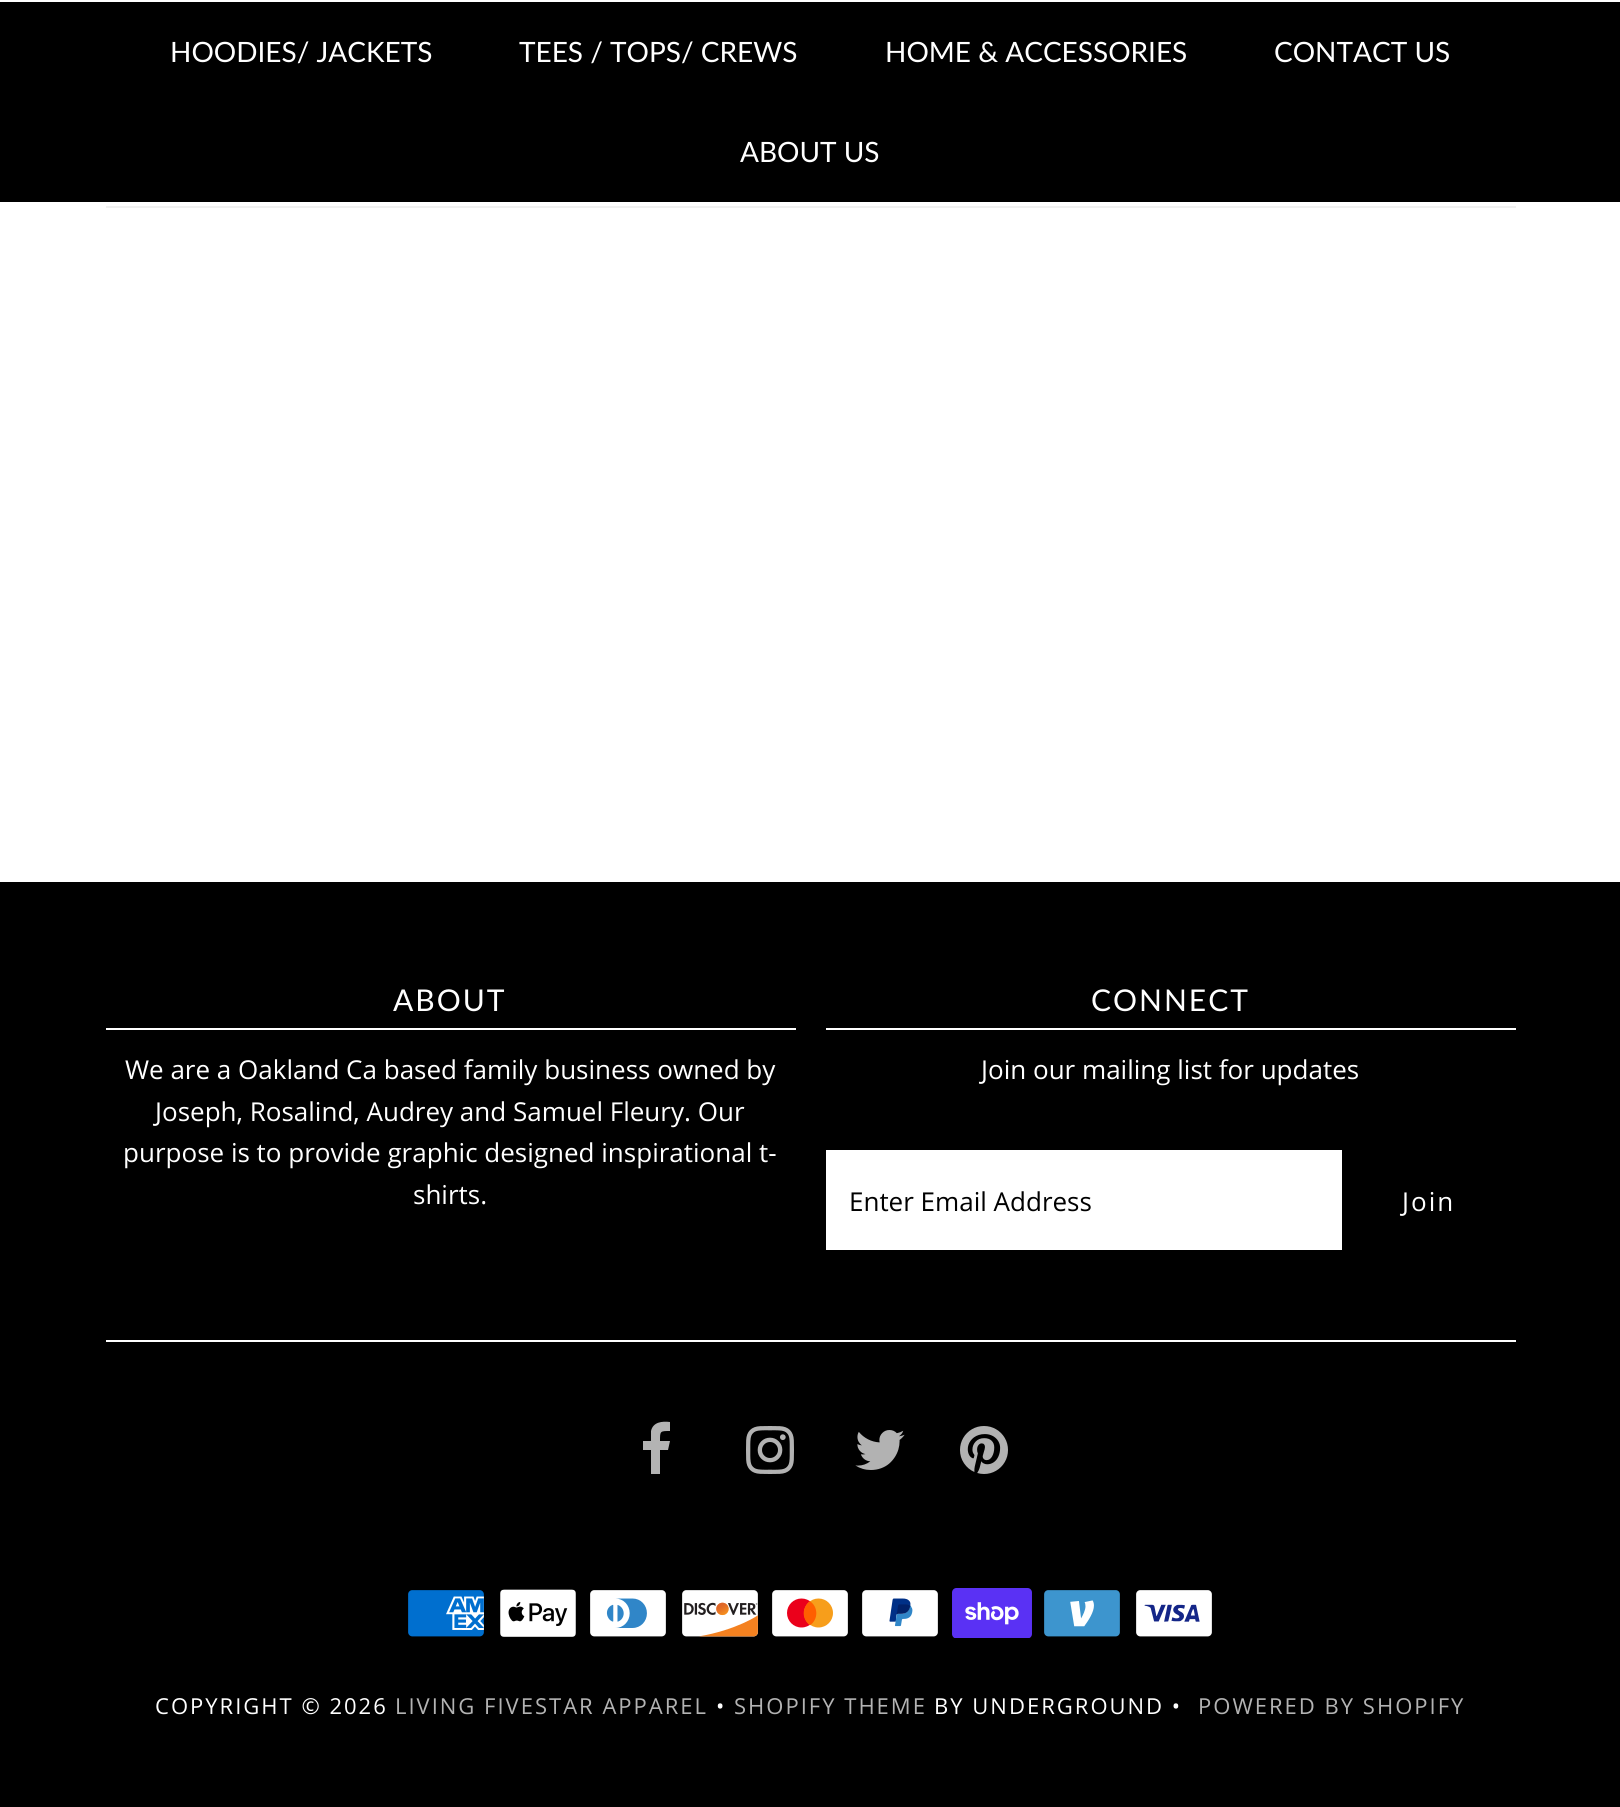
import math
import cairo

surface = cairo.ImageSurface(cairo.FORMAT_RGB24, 1620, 1807)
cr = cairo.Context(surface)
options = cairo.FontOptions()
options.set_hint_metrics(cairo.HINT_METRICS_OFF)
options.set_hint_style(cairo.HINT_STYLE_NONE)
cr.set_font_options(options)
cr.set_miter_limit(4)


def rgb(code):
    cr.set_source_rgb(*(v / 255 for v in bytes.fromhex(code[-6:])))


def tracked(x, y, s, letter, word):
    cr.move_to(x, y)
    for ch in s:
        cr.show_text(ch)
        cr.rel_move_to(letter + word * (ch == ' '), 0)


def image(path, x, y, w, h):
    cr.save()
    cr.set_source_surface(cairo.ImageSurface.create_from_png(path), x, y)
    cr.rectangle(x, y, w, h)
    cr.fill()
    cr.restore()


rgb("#ffffff")
cr.paint()
for x, y, w, h, color in [
    (0, 2, 1620, 200, "#000000"),
    (106, 206, 1410, 2, "#f0f0f0"),
    (0, 882, 1620, 925, "#000000"),
    (106, 1028, 690, 2, "#ffffff"),
    (826, 1028, 690, 2, "#ffffff"),
    (826, 1150, 516, 100, "#ffffff"),
    (106, 1340, 1410, 2, "#ffffff"),
]:
    rgb(color)
    cr.rectangle(x, y, w, h)
    cr.fill()
rgb("#b3b3b3")
cr.new_path()
cr.move_to(670, 1422)
cr.line_to(670, 1431)
cr.curve_to(660, 1431, 660, 1431, 660, 1441)
cr.line_to(670, 1441)
cr.line_to(668, 1450)
cr.line_to(660, 1450)
cr.line_to(660, 1474)
cr.line_to(651, 1474)
cr.line_to(651, 1450)
cr.line_to(643, 1450)
cr.line_to(643, 1441)
cr.line_to(651, 1441)
cr.line_to(651, 1431)
cr.curve_to(653, 1422, 662, 1421, 670, 1422)
cr.close_path()
cr.fill()
image("img/1.png", 746, 1426, 48, 48)
image("img/2.png", 855, 1430, 50, 40)
image("img/3.png", 960, 1426, 48, 48)
image("img/4.png", 408, 1590, 76, 47)
image("img/5.png", 500, 1589, 76, 48)
image("img/6.png", 590, 1590, 76, 47)
image("img/7.png", 682, 1590, 76, 47)
image("img/8.png", 772, 1590, 76, 47)
image("img/9.png", 862, 1590, 76, 47)
image("img/10.png", 952, 1588, 80, 50)
image("img/11.png", 1044, 1590, 76, 47)
image("img/12.png", 1136, 1590, 76, 47)
cr.select_font_face("Lato")
cr.set_font_size(28)
rgb("#ffffff")
for x, y, s in [
    (170, 62, "HOODIES/ JACKETS"),
    (519, 62, "TEES / TOPS/ CREWS"),
    (885, 62, "HOME & ACCESSORIES"),
    (1274, 62, "CONTACT US"),
    (740, 162, "ABOUT US"),
]:
    cr.move_to(x, y)
    cr.show_text(s)
cr.set_font_size(30)
tracked(393, 1011, "ABOUT", 2, 0)
cr.select_font_face("Open Sans")
cr.set_font_size(26)
for x, y, s in [
    (125, 1079, "We are a Oakland Ca based family business owned by"),
    (155, 1121, "Joseph, Rosalind, Audrey and Samuel Fleury. Our"),
    (123, 1162, "purpose is to provide graphic designed inspirational t-"),
    (413, 1204, "shirts."),
]:
    cr.move_to(x, y)
    cr.show_text(s)
cr.select_font_face("Lato")
cr.set_font_size(30)
tracked(1091, 1011, "CONNECT", 2, 0)
cr.select_font_face("Open Sans")
cr.set_font_size(26)
cr.move_to(981, 1079)
cr.show_text("Join our mailing list for updates")
rgb("#000000")
cr.move_to(849, 1211)
cr.show_text("Enter Email Address")
rgb("#ffffff")
tracked(1402, 1211, "Join", 2, 0)
cr.set_font_size(22)
tracked(155, 1714, "COPYRIGHT © 2026", 2, 0)
rgb("#b3b3b3")
tracked(395, 1714, "LIVING FIVESTAR APPAREL", 2, 0)
rgb("#ffffff")
tracked(716, 1714, "•", 2, 0)
rgb("#b3b3b3")
tracked(734, 1714, "SHOPIFY THEME", 2, 0)
rgb("#ffffff")
tracked(934, 1714, "BY UNDERGROUND •", 2, 0)
rgb("#b3b3b3")
tracked(1198, 1714, "POWERED BY SHOPIFY", 2, 0)
surface.write_to_png("page.png")
